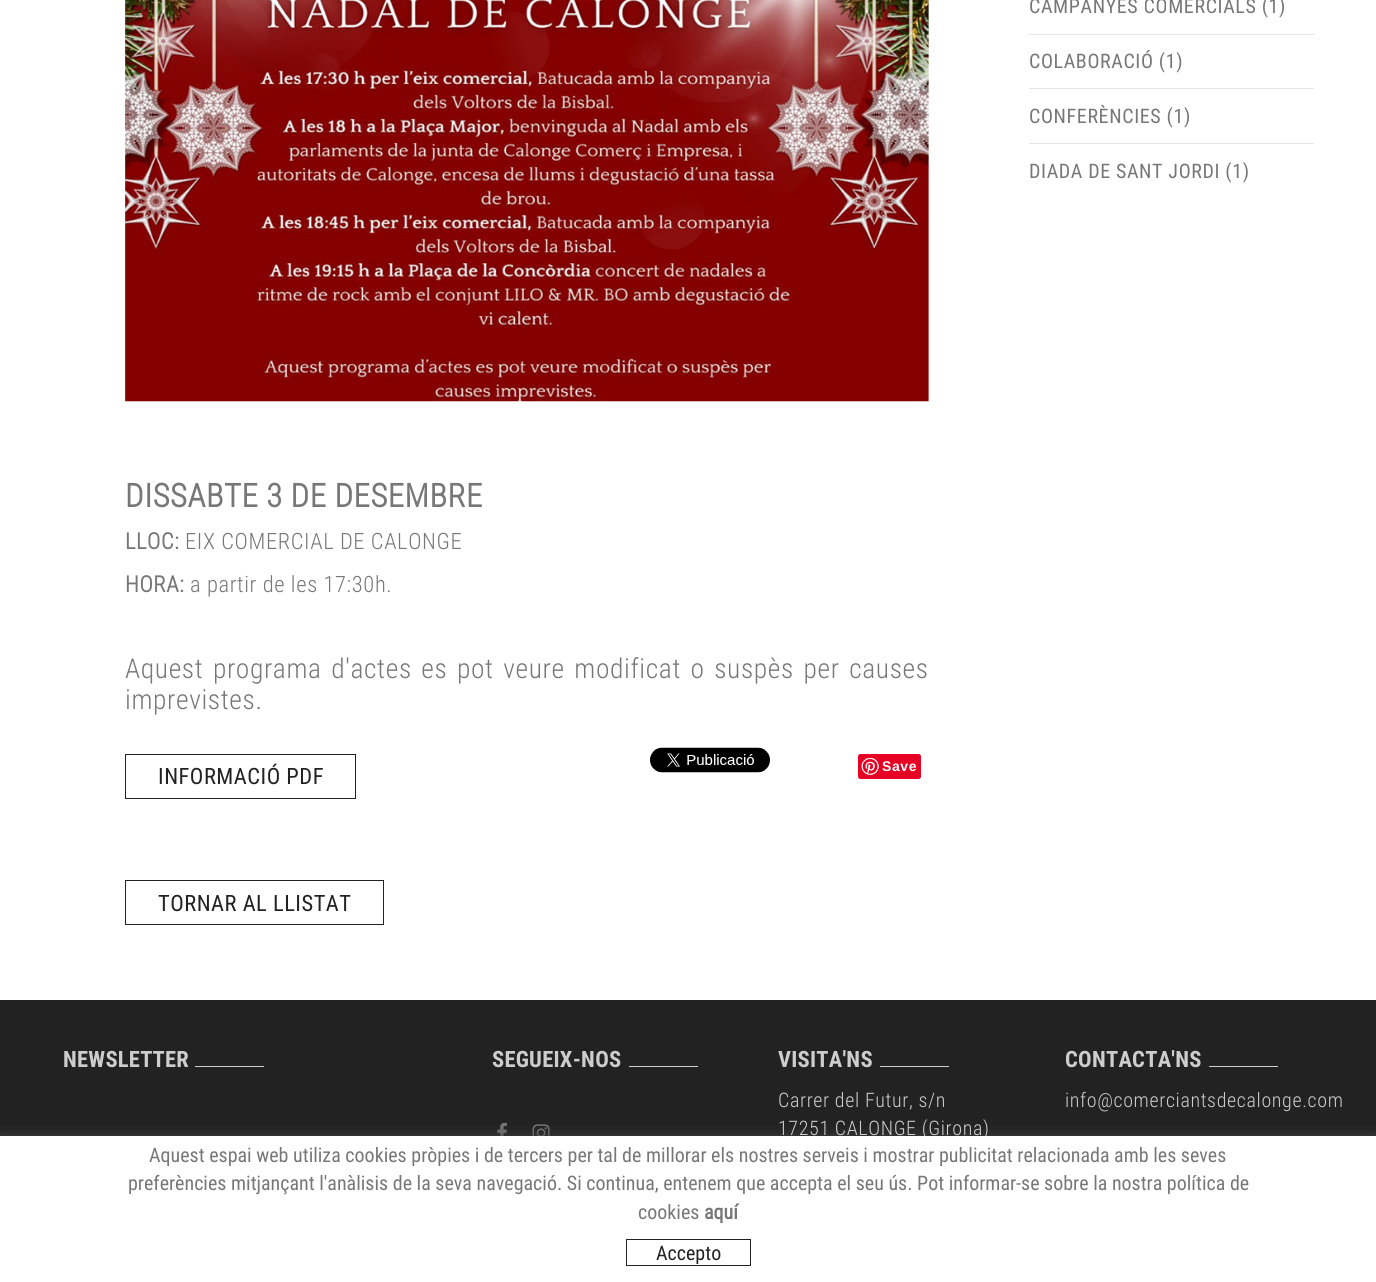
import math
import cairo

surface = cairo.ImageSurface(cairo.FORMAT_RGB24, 1376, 1282)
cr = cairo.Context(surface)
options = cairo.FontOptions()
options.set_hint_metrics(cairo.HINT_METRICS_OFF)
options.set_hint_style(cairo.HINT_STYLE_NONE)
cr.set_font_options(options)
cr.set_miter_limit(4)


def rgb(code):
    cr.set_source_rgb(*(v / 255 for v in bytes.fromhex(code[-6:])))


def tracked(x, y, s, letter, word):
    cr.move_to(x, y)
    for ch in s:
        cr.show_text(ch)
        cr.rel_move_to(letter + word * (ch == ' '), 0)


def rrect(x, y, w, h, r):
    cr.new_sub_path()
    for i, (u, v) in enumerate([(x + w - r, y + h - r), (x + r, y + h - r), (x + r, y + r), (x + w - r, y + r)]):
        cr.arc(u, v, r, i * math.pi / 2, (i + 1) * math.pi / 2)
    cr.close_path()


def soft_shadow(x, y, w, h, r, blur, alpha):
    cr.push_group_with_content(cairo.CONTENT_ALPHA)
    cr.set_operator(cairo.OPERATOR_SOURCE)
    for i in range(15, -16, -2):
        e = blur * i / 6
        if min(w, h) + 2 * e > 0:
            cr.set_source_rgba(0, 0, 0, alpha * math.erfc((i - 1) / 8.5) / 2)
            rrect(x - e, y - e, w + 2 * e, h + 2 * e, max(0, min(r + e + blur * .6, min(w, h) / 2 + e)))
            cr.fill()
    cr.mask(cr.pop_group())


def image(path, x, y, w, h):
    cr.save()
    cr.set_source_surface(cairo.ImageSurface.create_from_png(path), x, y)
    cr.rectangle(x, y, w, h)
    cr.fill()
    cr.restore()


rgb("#ffffff")
cr.paint()
for x, y, w, h, color in [
    (1029, 34, 285, 1, "#e5e5e5"),
    (1029, 88, 285, 1, "#e5e5e5"),
    (1029, 143, 285, 1, "#e5e5e5"),
]:
    rgb(color)
    cr.rectangle(x, y, w, h)
    cr.fill()
image("img/1.png", 125, 0, 804, 402)
cr.rectangle(125.5, 754.5, 230, 44)
rgb("#222222")
cr.set_line_width(1)
cr.stroke()
image("img/2.png", 650, 747, 120, 26)
rgb("#e60023")
rrect(858, 754, 63, 25, 2.5)
cr.fill()
image("img/3.png", 861, 758, 18, 17)
cr.rectangle(125.5, 880.5, 258, 44)
rgb("#222222")
cr.stroke()
for x, y, w, h, color in [
    (0, 1000, 1376, 136, "#222222"),
    (195, 1066, 69, 1, "#cdcdcd"),
    (629, 1066, 69, 1, "#cdcdcd"),
]:
    rgb(color)
    cr.rectangle(x, y, w, h)
    cr.fill()
image("img/4.png", 497, 1122, 10, 14)
image("img/5.png", 532, 1124, 18, 12)
cr.rectangle(880, 1066, 69, 1)
cr.fill()
cr.rectangle(1209, 1066, 69, 1)
cr.fill()
rgb("#444444")
soft_shadow(0, 1136, 1376, 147, 0, 6, 1)
cr.select_font_face("Roboto Condensed")
cr.set_font_size(20)
rgb("#777777")
for x, y, s in [
    (1029, 13, "CAMPANYES COMERCIALS (1)"),
    (1029, 68, "COLABORACIÓ (1)"),
    (1029, 123, "CONFERÈNCIES (1)"),
    (1029, 178, "DIADA DE SANT JORDI (1)"),
]:
    tracked(x, y, s, 0.62, 0)
cr.select_font_face("Roboto Condensed", cairo.FONT_SLANT_NORMAL, cairo.FONT_WEIGHT_BOLD)
cr.set_font_size(32.5)
tracked(125, 507, "DISSABTE 3 DE DESEMBRE", 0.62, 0)
cr.set_font_size(22.5)
tracked(125, 549, "LLOC:", 0.62, 0)
cr.select_font_face("Roboto Condensed Light")
tracked(185, 549, "EIX COMERCIAL DE CALONGE", 0.62, 0)
cr.select_font_face("Roboto Condensed", cairo.FONT_SLANT_NORMAL, cairo.FONT_WEIGHT_BOLD)
tracked(125, 592, "HORA:", 0.62, 0)
cr.select_font_face("Roboto Condensed Light")
tracked(190, 592, "a partir de les 17:30h.", 0.62, 0)
cr.set_font_size(27.5)
tracked(125, 678, "Aquest programa d'actes es pot veure modificat o suspès per causes", 0.62, 2.75)
tracked(125, 709, "imprevistes.", 0.62, 0)
cr.select_font_face("Roboto Condensed")
cr.set_font_size(22.5)
rgb("#222222")
tracked(158, 784, "INFORMACIÓ PDF", 0.5, 0)
cr.select_font_face("Liberation Sans", cairo.FONT_SLANT_NORMAL, cairo.FONT_WEIGHT_BOLD)
cr.set_font_size(14)
rgb("#ffffff")
tracked(882, 771, "Save", 0.62, 0)
cr.select_font_face("Roboto Condensed")
cr.set_font_size(22.5)
rgb("#222222")
tracked(158, 911, "TORNAR AL LLISTAT", 0.5, 0)
cr.select_font_face("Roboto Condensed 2", cairo.FONT_SLANT_NORMAL, cairo.FONT_WEIGHT_BOLD)
rgb("#cdcdcd")
for x, y, s in [
    (63, 1067, "NEWSLETTER"),
    (492, 1067, "SEGUEIX-NOS"),
    (778, 1067, "VISITA'NS"),
]:
    tracked(x, y, s, 0.25, 0)
cr.select_font_face("Roboto Condensed Light")
cr.set_font_size(20)
tracked(778, 1107, "Carrer del Futur, s/n", 0.62, 0)
tracked(778, 1135, "17251 CALONGE (Girona)", 0.62, 0)
cr.select_font_face("Roboto Condensed 2", cairo.FONT_SLANT_NORMAL, cairo.FONT_WEIGHT_BOLD)
cr.set_font_size(22.5)
tracked(1065, 1067, "CONTACTA'NS", 0.25, 0)
cr.select_font_face("Roboto Condensed Light")
cr.set_font_size(20)
tracked(1065, 1107, "info@comerciantsdecalonge.com", 0.62, 0)
rgb("#ffffff")
cr.rectangle(0, 1136, 1376, 146)
cr.fill()
cr.select_font_face("Roboto Condensed")
rgb("#777777")
for x, y, s in [
    (149, 1162, "Aquest espai web utiliza cookies pròpies i de tercers per tal de millorar els nostres serveis i mostrar publicitat relacionada amb les seves"),
    (128, 1190, "preferències mitjançant l'anàlisis de la seva navegació. Si continua, entenem que accepta el seu ús. Pot informar-se sobre la nostra política de"),
    (638, 1219, "cookies"),
]:
    cr.move_to(x, y)
    cr.show_text(s)
cr.select_font_face("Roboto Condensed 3", cairo.FONT_SLANT_NORMAL, cairo.FONT_WEIGHT_BOLD)
cr.move_to(704, 1219)
cr.show_text("aquí")
cr.rectangle(626.5, 1239.5, 124, 26)
rgb("#222222")
cr.stroke()
cr.select_font_face("Roboto Condensed")
cr.move_to(656, 1260)
cr.show_text("Accepto")
surface.write_to_png("page.png")
